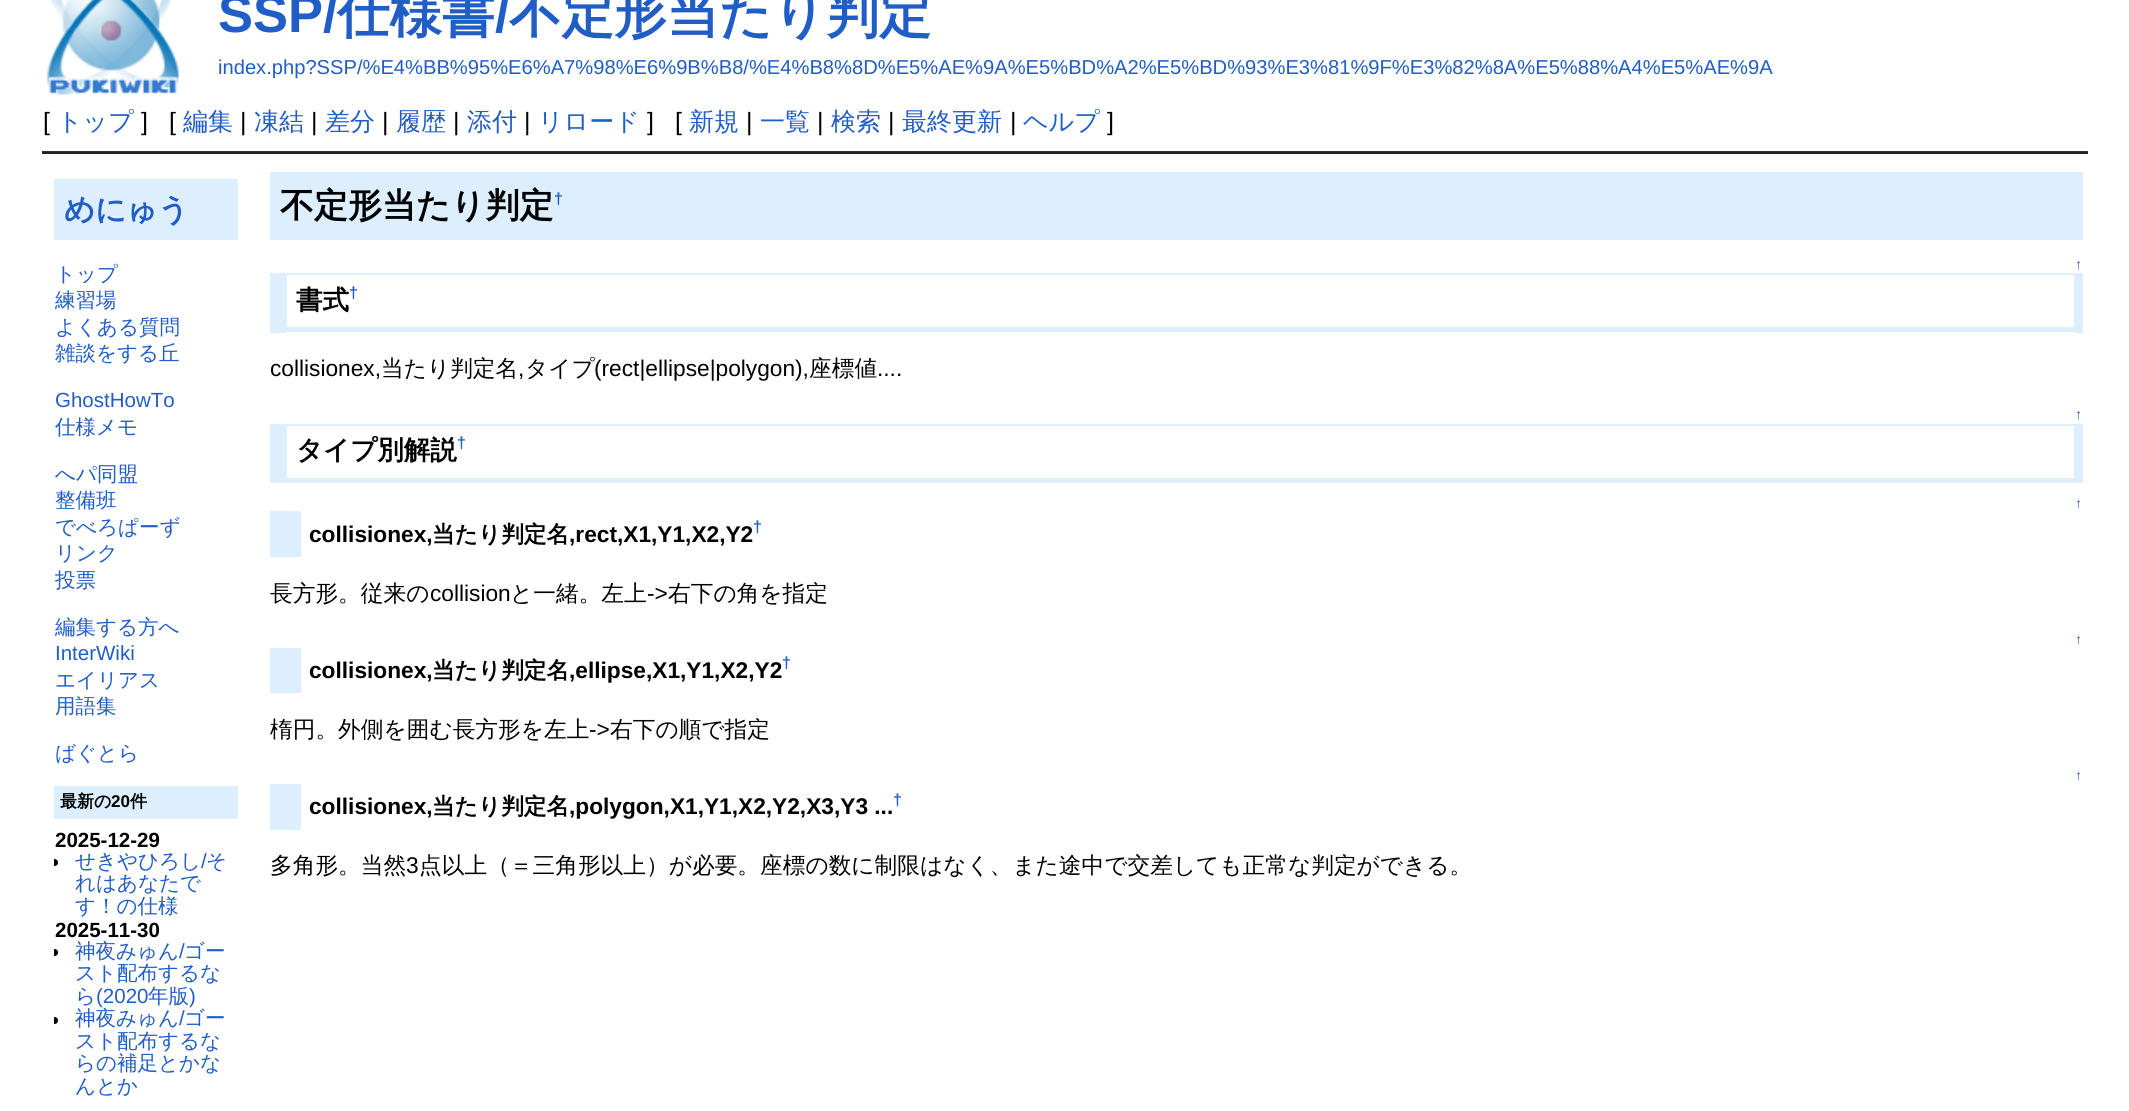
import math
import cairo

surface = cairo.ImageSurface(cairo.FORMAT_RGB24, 2129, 1111)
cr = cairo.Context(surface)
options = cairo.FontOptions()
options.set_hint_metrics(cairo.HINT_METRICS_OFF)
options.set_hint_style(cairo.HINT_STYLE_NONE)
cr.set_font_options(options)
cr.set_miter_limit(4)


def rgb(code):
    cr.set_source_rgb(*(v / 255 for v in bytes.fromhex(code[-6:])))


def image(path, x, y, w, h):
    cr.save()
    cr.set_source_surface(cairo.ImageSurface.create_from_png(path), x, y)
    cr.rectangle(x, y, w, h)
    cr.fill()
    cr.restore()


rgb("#ffffff")
cr.paint()
image("img/1.png", 46, 0, 133, 95)
for x, y, w, h, color in [
    (42, 151, 2046, 1, "#333333"),
    (42, 152, 2046, 2, "#222222"),
    (54, 179, 184, 61, "#ddeeff"),
    (54, 786, 184, 33, "#ddeeff"),
]:
    rgb(color)
    cr.rectangle(x, y, w, h)
    cr.fill()
cr.save()
cr.rectangle(54, 179, 184, 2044)
cr.clip()
rgb("#000000")
cr.arc(54.5, 862.5, 3.5, 0, 2 * math.pi)
cr.fill()
cr.arc(54.5, 952.5, 3.5, 0, 2 * math.pi)
cr.fill()
cr.arc(54.5, 1020.5, 3.5, 0, 2 * math.pi)
cr.fill()
cr.restore()
for x, y, w, h, color in [
    (270, 172, 1813, 68, "#ddeeff"),
    (287, 273, 1787, 2, "#ddeeff"),
    (2074, 273, 9, 60, "#ddeeff"),
    (287, 327, 1787, 5, "#ddeeff"),
    (270, 273, 17, 60, "#ddeeff"),
    (287, 424, 1787, 2, "#ddeeff"),
    (2074, 424, 9, 54, "#ddeeff"),
    (287, 478, 1796, 5, "#ddeeff"),
    (270, 424, 17, 59, "#ddeeff"),
    (270, 511, 31, 46, "#ddeeff"),
    (270, 648, 31, 45, "#ddeeff"),
    (270, 784, 31, 46, "#ddeeff"),
]:
    rgb(color)
    cr.rectangle(x, y, w, h)
    cr.fill()
cr.select_font_face("Liberation Sans", cairo.FONT_SLANT_NORMAL, cairo.FONT_WEIGHT_BOLD)
cr.set_font_size(52.5)
rgb("#215dc6")
cr.move_to(218, 32)
cr.show_text("SSP/")
cr.select_font_face("WenQuanYi Zen Hei", cairo.FONT_SLANT_NORMAL, cairo.FONT_WEIGHT_BOLD)
cr.move_to(337, 32)
cr.show_text("仕様書")
cr.select_font_face("Liberation Sans", cairo.FONT_SLANT_NORMAL, cairo.FONT_WEIGHT_BOLD)
cr.move_to(495, 32)
cr.show_text("/")
cr.select_font_face("WenQuanYi Zen Hei", cairo.FONT_SLANT_NORMAL, cairo.FONT_WEIGHT_BOLD)
cr.move_to(509, 32)
cr.show_text("不定形当たり判定")
cr.select_font_face("Liberation Sans")
cr.set_font_size(20.15)
cr.move_to(218, 74)
cr.show_text("index.php?SSP/%E4%BB%95%E6%A7%98%E6%9B%B8/%E4%B8%8D%E5%AE%9A%E5%BD%A2%E5%BD%93%E3%81%9F%E3%82%8A%E5%88%A4%E5%AE%9A")
cr.set_font_size(25)
rgb("#000000")
cr.move_to(43, 130)
cr.show_text("[")
cr.select_font_face("WenQuanYi Zen Hei Medium")
rgb("#215dc6")
cr.move_to(57, 130)
cr.show_text("トップ")
cr.select_font_face("Liberation Sans")
rgb("#000000")
cr.move_to(141, 130)
cr.show_text("]")
cr.move_to(169, 130)
cr.show_text("[")
cr.select_font_face("WenQuanYi Zen Hei Medium")
rgb("#215dc6")
cr.move_to(183, 130)
cr.show_text("編集")
cr.select_font_face("Liberation Sans")
rgb("#000000")
cr.move_to(240, 130)
cr.show_text("|")
cr.select_font_face("WenQuanYi Zen Hei Medium")
rgb("#215dc6")
cr.move_to(254, 130)
cr.show_text("凍結")
cr.select_font_face("Liberation Sans")
rgb("#000000")
cr.move_to(311, 130)
cr.show_text("|")
cr.select_font_face("WenQuanYi Zen Hei Medium")
rgb("#215dc6")
cr.move_to(325, 130)
cr.show_text("差分")
cr.select_font_face("Liberation Sans")
rgb("#000000")
cr.move_to(382, 130)
cr.show_text("|")
cr.select_font_face("WenQuanYi Zen Hei Medium")
rgb("#215dc6")
cr.move_to(396, 130)
cr.show_text("履歴")
cr.select_font_face("Liberation Sans")
rgb("#000000")
cr.move_to(453, 130)
cr.show_text("|")
cr.select_font_face("WenQuanYi Zen Hei Medium")
rgb("#215dc6")
cr.move_to(467, 130)
cr.show_text("添付")
cr.select_font_face("Liberation Sans")
rgb("#000000")
cr.move_to(524, 130)
cr.show_text("|")
cr.select_font_face("WenQuanYi Zen Hei Medium")
rgb("#215dc6")
cr.move_to(538, 130)
cr.show_text("リロード")
cr.select_font_face("Liberation Sans")
rgb("#000000")
cr.move_to(647, 130)
cr.show_text("]")
cr.move_to(675, 130)
cr.show_text("[")
cr.select_font_face("WenQuanYi Zen Hei Medium")
rgb("#215dc6")
cr.move_to(689, 130)
cr.show_text("新規")
cr.select_font_face("Liberation Sans")
rgb("#000000")
cr.move_to(746, 130)
cr.show_text("|")
cr.select_font_face("WenQuanYi Zen Hei Medium")
rgb("#215dc6")
cr.move_to(760, 130)
cr.show_text("一覧")
cr.select_font_face("Liberation Sans")
rgb("#000000")
cr.move_to(817, 130)
cr.show_text("|")
cr.select_font_face("WenQuanYi Zen Hei Medium")
rgb("#215dc6")
cr.move_to(831, 130)
cr.show_text("検索")
cr.select_font_face("Liberation Sans")
rgb("#000000")
cr.move_to(888, 130)
cr.show_text("|")
cr.select_font_face("WenQuanYi Zen Hei Medium")
rgb("#215dc6")
cr.move_to(902, 130)
cr.show_text("最終更新")
cr.select_font_face("Liberation Sans")
rgb("#000000")
cr.move_to(1010, 130)
cr.show_text("|")
cr.select_font_face("WenQuanYi Zen Hei Medium")
rgb("#215dc6")
cr.move_to(1023, 130)
cr.show_text("ヘルプ")
cr.select_font_face("Liberation Sans")
rgb("#000000")
cr.move_to(1107, 130)
cr.show_text("]")
cr.select_font_face("WenQuanYi Zen Hei", cairo.FONT_SLANT_NORMAL, cairo.FONT_WEIGHT_BOLD)
cr.set_font_size(30.5)
rgb("#215dc6")
cr.move_to(64, 220)
cr.show_text("めにゅう")
cr.select_font_face("WenQuanYi Zen Hei Medium")
cr.set_font_size(20.5)
for x, y, s in [
    (55, 281, "トップ"),
    (55, 307, "練習場"),
    (55, 334, "よくある質問"),
    (55, 360, "雑談をする丘"),
]:
    cr.move_to(x, y)
    cr.show_text(s)
cr.select_font_face("Liberation Sans")
cr.move_to(55, 407)
cr.show_text("GhostHowTo")
cr.select_font_face("WenQuanYi Zen Hei Medium")
for x, y, s in [
    (55, 434, "仕様メモ"),
    (55, 481, "へパ同盟"),
    (55, 507, "整備班"),
    (55, 534, "でべろぱーず"),
    (55, 560, "リンク"),
    (55, 587, "投票"),
    (55, 634, "編集する方へ"),
]:
    cr.move_to(x, y)
    cr.show_text(s)
cr.select_font_face("Liberation Sans")
cr.move_to(55, 660)
cr.show_text("InterWiki")
cr.select_font_face("WenQuanYi Zen Hei Medium")
for x, y, s in [
    (55, 687, "エイリアス"),
    (55, 713, "用語集"),
    (55, 760, "ばぐとら"),
]:
    cr.move_to(x, y)
    cr.show_text(s)
cr.select_font_face("WenQuanYi Zen Hei", cairo.FONT_SLANT_NORMAL, cairo.FONT_WEIGHT_BOLD)
cr.set_font_size(17)
rgb("#000000")
cr.move_to(60, 807)
cr.show_text("最新の")
cr.select_font_face("Liberation Sans", cairo.FONT_SLANT_NORMAL, cairo.FONT_WEIGHT_BOLD)
cr.move_to(111, 807)
cr.show_text("20")
cr.select_font_face("WenQuanYi Zen Hei", cairo.FONT_SLANT_NORMAL, cairo.FONT_WEIGHT_BOLD)
cr.move_to(130, 807)
cr.show_text("件")
cr.select_font_face("Liberation Sans", cairo.FONT_SLANT_NORMAL, cairo.FONT_WEIGHT_BOLD)
cr.set_font_size(20.5)
cr.move_to(55, 847)
cr.show_text("2025-12-29")
cr.select_font_face("WenQuanYi Zen Hei Medium")
rgb("#215dc6")
cr.move_to(75, 868)
cr.show_text("せきやひろし")
cr.select_font_face("Liberation Sans")
cr.move_to(201, 868)
cr.show_text("/")
cr.select_font_face("WenQuanYi Zen Hei Medium")
for x, y, s in [
    (206, 868, "そ"),
    (75, 890, "れはあなたで"),
    (75, 913, "す！の仕様"),
]:
    cr.move_to(x, y)
    cr.show_text(s)
cr.select_font_face("Liberation Sans", cairo.FONT_SLANT_NORMAL, cairo.FONT_WEIGHT_BOLD)
rgb("#000000")
cr.move_to(55, 937)
cr.show_text("2025-11-30")
cr.select_font_face("WenQuanYi Zen Hei Medium")
rgb("#215dc6")
cr.move_to(75, 958)
cr.show_text("神夜みゅん")
cr.select_font_face("Liberation Sans")
cr.move_to(179, 958)
cr.show_text("/")
cr.select_font_face("WenQuanYi Zen Hei Medium")
for x, y, s in [
    (184, 958, "ゴー"),
    (75, 980, "スト配布するな"),
    (75, 1003, "ら"),
]:
    cr.move_to(x, y)
    cr.show_text(s)
cr.select_font_face("Liberation Sans")
cr.move_to(96, 1003)
cr.show_text("(2020")
cr.select_font_face("WenQuanYi Zen Hei Medium")
cr.move_to(148, 1003)
cr.show_text("年版")
cr.select_font_face("Liberation Sans")
cr.move_to(189, 1003)
cr.show_text(")")
cr.select_font_face("WenQuanYi Zen Hei Medium")
cr.move_to(75, 1025)
cr.show_text("神夜みゅん")
cr.select_font_face("Liberation Sans")
cr.move_to(179, 1025)
cr.show_text("/")
cr.select_font_face("WenQuanYi Zen Hei Medium")
for x, y, s in [
    (184, 1025, "ゴー"),
    (75, 1048, "スト配布するな"),
    (75, 1070, "らの補足とかな"),
    (75, 1093, "んとか"),
]:
    cr.move_to(x, y)
    cr.show_text(s)
cr.select_font_face("WenQuanYi Zen Hei", cairo.FONT_SLANT_NORMAL, cairo.FONT_WEIGHT_BOLD)
cr.set_font_size(34)
rgb("#000000")
cr.move_to(280, 217)
cr.show_text("不定形当たり判定")
cr.select_font_face("Liberation Sans", cairo.FONT_SLANT_NORMAL, cairo.FONT_WEIGHT_BOLD)
cr.set_font_size(16)
rgb("#215dc6")
cr.move_to(554, 204)
cr.show_text("†")
cr.select_font_face("Liberation Sans")
cr.set_font_size(14)
cr.move_to(2075, 269)
cr.show_text("↑")
cr.select_font_face("WenQuanYi Zen Hei", cairo.FONT_SLANT_NORMAL, cairo.FONT_WEIGHT_BOLD)
cr.set_font_size(26.5)
rgb("#000000")
cr.move_to(296, 309)
cr.show_text("書式")
cr.select_font_face("Liberation Sans", cairo.FONT_SLANT_NORMAL, cairo.FONT_WEIGHT_BOLD)
cr.set_font_size(16)
rgb("#215dc6")
cr.move_to(349, 298)
cr.show_text("†")
cr.select_font_face("Liberation Sans")
cr.set_font_size(22.7)
rgb("#000000")
cr.move_to(270, 376)
cr.show_text("collisionex,")
cr.select_font_face("WenQuanYi Zen Hei Medium")
cr.move_to(381, 376)
cr.show_text("当たり判定名")
cr.select_font_face("Liberation Sans")
cr.move_to(518, 376)
cr.show_text(",")
cr.select_font_face("WenQuanYi Zen Hei Medium")
cr.move_to(525, 376)
cr.show_text("タイプ")
cr.select_font_face("Liberation Sans")
cr.move_to(594, 376)
cr.show_text("(rect|ellipse|polygon),")
cr.select_font_face("WenQuanYi Zen Hei Medium")
cr.move_to(809, 376)
cr.show_text("座標値")
cr.select_font_face("Liberation Sans")
cr.move_to(877, 376)
cr.show_text("....")
cr.set_font_size(14)
rgb("#215dc6")
cr.move_to(2075, 419)
cr.show_text("↑")
cr.select_font_face("WenQuanYi Zen Hei", cairo.FONT_SLANT_NORMAL, cairo.FONT_WEIGHT_BOLD)
cr.set_font_size(26.5)
rgb("#000000")
cr.move_to(296, 459)
cr.show_text("タイプ別解説")
cr.select_font_face("Liberation Sans", cairo.FONT_SLANT_NORMAL, cairo.FONT_WEIGHT_BOLD)
cr.set_font_size(16)
rgb("#215dc6")
cr.move_to(457, 448)
cr.show_text("†")
cr.select_font_face("Liberation Sans")
cr.set_font_size(14)
cr.move_to(2075, 508)
cr.show_text("↑")
cr.select_font_face("Liberation Sans", cairo.FONT_SLANT_NORMAL, cairo.FONT_WEIGHT_BOLD)
cr.set_font_size(22.7)
rgb("#000000")
cr.move_to(309, 542)
cr.show_text("collisionex,")
cr.select_font_face("WenQuanYi Zen Hei", cairo.FONT_SLANT_NORMAL, cairo.FONT_WEIGHT_BOLD)
cr.move_to(432, 542)
cr.show_text("当たり判定名")
cr.select_font_face("Liberation Sans", cairo.FONT_SLANT_NORMAL, cairo.FONT_WEIGHT_BOLD)
cr.move_to(569, 542)
cr.show_text(",rect,X1,Y1,X2,Y2")
cr.set_font_size(16)
rgb("#215dc6")
cr.move_to(753, 532)
cr.show_text("†")
cr.select_font_face("WenQuanYi Zen Hei Medium")
cr.set_font_size(22.7)
rgb("#000000")
cr.move_to(270, 601)
cr.show_text("長方形。従来の")
cr.select_font_face("Liberation Sans")
cr.move_to(430, 601)
cr.show_text("collision")
cr.select_font_face("WenQuanYi Zen Hei Medium")
cr.move_to(510, 601)
cr.show_text("と一緒。左上")
cr.select_font_face("Liberation Sans")
cr.move_to(647, 601)
cr.show_text("->")
cr.select_font_face("WenQuanYi Zen Hei Medium")
cr.move_to(668, 601)
cr.show_text("右下の角を指定")
cr.select_font_face("Liberation Sans")
cr.set_font_size(14)
rgb("#215dc6")
cr.move_to(2075, 644)
cr.show_text("↑")
cr.select_font_face("Liberation Sans", cairo.FONT_SLANT_NORMAL, cairo.FONT_WEIGHT_BOLD)
cr.set_font_size(22.7)
rgb("#000000")
cr.move_to(309, 678)
cr.show_text("collisionex,")
cr.select_font_face("WenQuanYi Zen Hei", cairo.FONT_SLANT_NORMAL, cairo.FONT_WEIGHT_BOLD)
cr.move_to(432, 678)
cr.show_text("当たり判定名")
cr.select_font_face("Liberation Sans", cairo.FONT_SLANT_NORMAL, cairo.FONT_WEIGHT_BOLD)
cr.move_to(569, 678)
cr.show_text(",ellipse,X1,Y1,X2,Y2")
cr.set_font_size(16)
rgb("#215dc6")
cr.move_to(782, 668)
cr.show_text("†")
cr.select_font_face("WenQuanYi Zen Hei Medium")
cr.set_font_size(22.7)
rgb("#000000")
cr.move_to(270, 737)
cr.show_text("楕円。外側を囲む長方形を左上")
cr.select_font_face("Liberation Sans")
cr.move_to(589, 737)
cr.show_text("->")
cr.select_font_face("WenQuanYi Zen Hei Medium")
cr.move_to(610, 737)
cr.show_text("右下の順で指定")
cr.select_font_face("Liberation Sans")
cr.set_font_size(14)
rgb("#215dc6")
cr.move_to(2075, 780)
cr.show_text("↑")
cr.select_font_face("Liberation Sans", cairo.FONT_SLANT_NORMAL, cairo.FONT_WEIGHT_BOLD)
cr.set_font_size(22.7)
rgb("#000000")
cr.move_to(309, 814)
cr.show_text("collisionex,")
cr.select_font_face("WenQuanYi Zen Hei", cairo.FONT_SLANT_NORMAL, cairo.FONT_WEIGHT_BOLD)
cr.move_to(432, 814)
cr.show_text("当たり判定名")
cr.select_font_face("Liberation Sans", cairo.FONT_SLANT_NORMAL, cairo.FONT_WEIGHT_BOLD)
cr.move_to(569, 814)
cr.show_text(",polygon,X1,Y1,X2,Y2,X3,Y3 ...")
cr.set_font_size(16)
rgb("#215dc6")
cr.move_to(893, 805)
cr.show_text("†")
cr.select_font_face("WenQuanYi Zen Hei Medium")
cr.set_font_size(22.7)
rgb("#000000")
cr.move_to(270, 873)
cr.show_text("多角形。当然")
cr.select_font_face("Liberation Sans")
cr.move_to(406, 873)
cr.show_text("3")
cr.select_font_face("WenQuanYi Zen Hei Medium")
cr.move_to(419, 873)
cr.show_text("点以上（＝三角形以上）が必要。座標の数に制限はなく、また途中で交差しても正常な判定ができる。")
surface.write_to_png("page.png")
